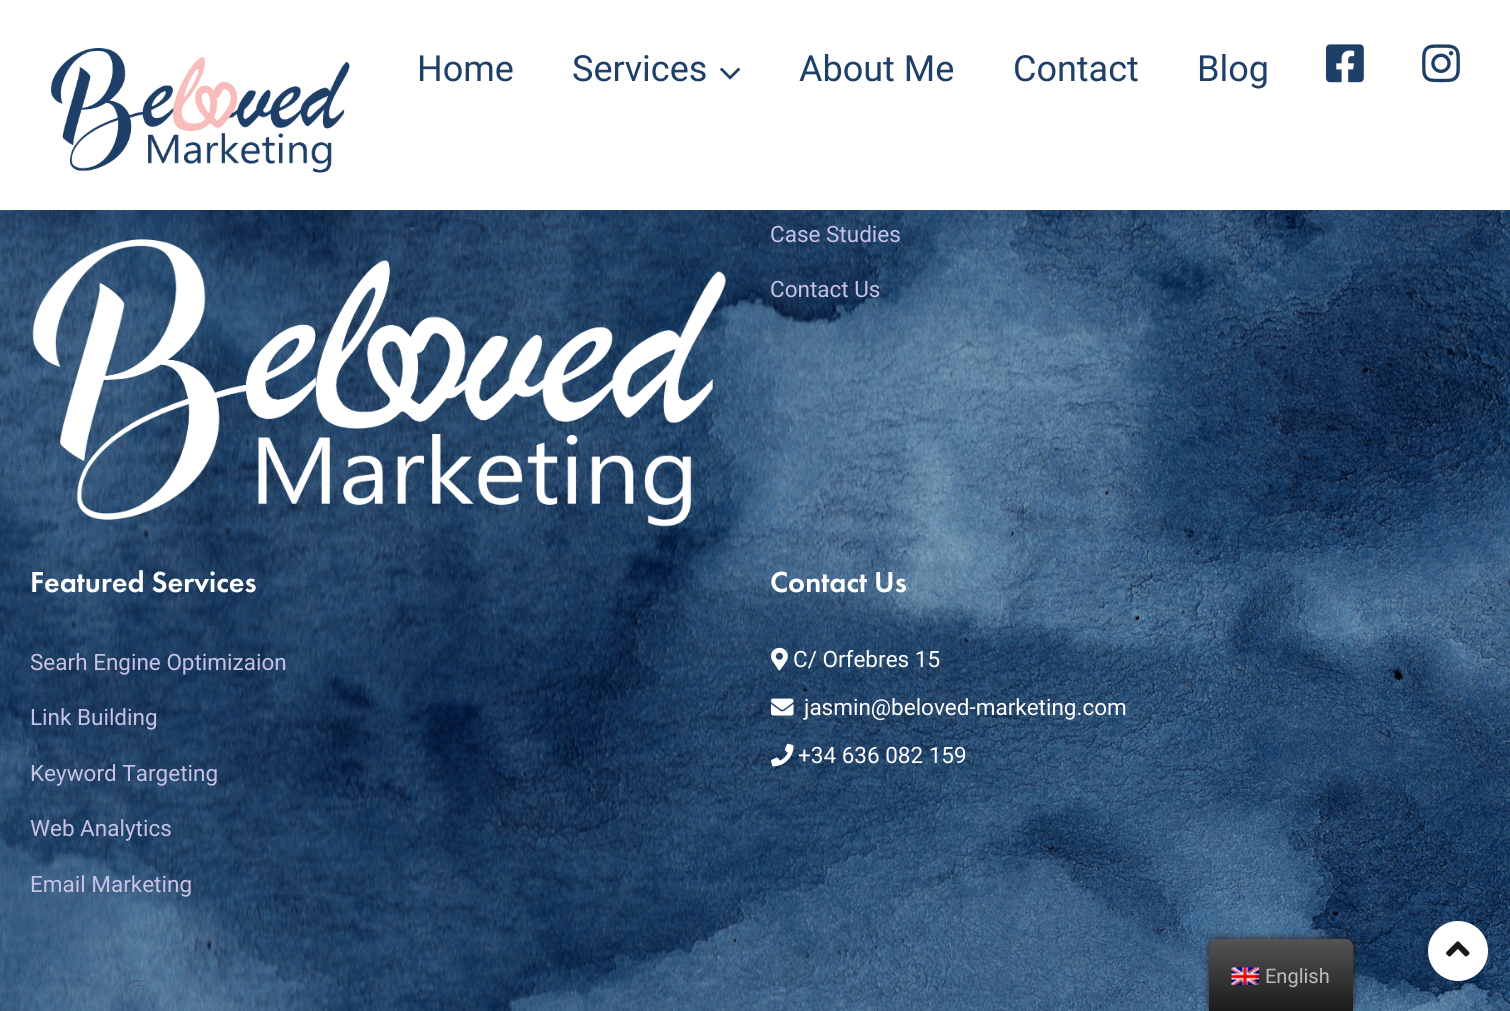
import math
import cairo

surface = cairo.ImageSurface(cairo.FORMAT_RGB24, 1510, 1011)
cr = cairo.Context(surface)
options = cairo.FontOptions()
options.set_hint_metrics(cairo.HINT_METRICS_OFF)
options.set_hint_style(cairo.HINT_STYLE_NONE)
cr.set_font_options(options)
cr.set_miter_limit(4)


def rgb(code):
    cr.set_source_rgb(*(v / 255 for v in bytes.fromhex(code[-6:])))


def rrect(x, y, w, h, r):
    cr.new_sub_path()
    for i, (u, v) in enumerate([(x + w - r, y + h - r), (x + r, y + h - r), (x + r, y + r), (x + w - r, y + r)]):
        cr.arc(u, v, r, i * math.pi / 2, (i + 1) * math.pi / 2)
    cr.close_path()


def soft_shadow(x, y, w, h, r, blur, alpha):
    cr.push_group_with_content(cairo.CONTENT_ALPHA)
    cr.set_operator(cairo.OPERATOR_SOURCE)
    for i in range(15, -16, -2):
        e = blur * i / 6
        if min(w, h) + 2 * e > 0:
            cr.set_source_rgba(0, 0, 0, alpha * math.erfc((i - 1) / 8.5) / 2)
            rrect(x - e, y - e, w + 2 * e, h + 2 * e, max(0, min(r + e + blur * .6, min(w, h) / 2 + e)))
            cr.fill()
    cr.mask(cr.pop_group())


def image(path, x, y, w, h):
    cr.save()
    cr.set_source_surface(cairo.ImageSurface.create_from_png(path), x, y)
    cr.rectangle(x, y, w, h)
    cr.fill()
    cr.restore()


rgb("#ffffff")
cr.paint()
image("img/5.png", 0, 210, 1510, 801)
image("img/6.png", 32, 239, 694, 288)
rgb("#000000")
soft_shadow(0, 0, 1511, 210, 0, 15, 0.07)
rgb("#ffffff")
cr.rectangle(0, 0, 1510, 210)
cr.fill()
image("img/1.png", 51, 48, 299, 125)
image("img/2.png", 720, 67, 21, 13)
image("img/3.png", 1326, 44, 38, 39)
image("img/4.png", 1422, 44, 38, 39)
image("img/7.png", 771, 647, 17, 24)
image("img/8.png", 771, 698, 23, 18)
image("img/9.png", 771, 743, 23, 24)
rgb("#212121")
soft_shadow(1209, 939, 144, 72, 8, 4, 1)
gradient = cairo.LinearGradient(1281, 1011, 1281, 939)
gradient.add_color_stop_rgba(0, 0.106, 0.106, 0.106, 1)
gradient.add_color_stop_rgba(1, 0.329, 0.329, 0.329, 1)
cr.set_source(gradient)
cr.new_path()
cr.move_to(1217, 939)
cr.line_to(1345, 939)
cr.curve_to(1349.5, 939, 1353, 942.5, 1353, 947)
cr.line_to(1353, 1011)
cr.line_to(1209, 1011)
cr.line_to(1209, 947)
cr.curve_to(1209, 942.5, 1212.5, 939, 1217, 939)
cr.close_path()
cr.fill()
image("img/10.png", 1231, 967, 28, 18)
rgb("#000000")
soft_shadow(1428, 926, 60, 60, 30, 7.5, 0.1)
rgb("#ffffff")
cr.arc(1458, 951, 30, 0, 2 * math.pi)
cr.fill()
image("img/11.png", 1446, 941, 24, 16)
cr.select_font_face("Roboto")
cr.set_font_size(36)
rgb("#1e3f67")
for x, y, s in [
    (417, 81, "Home"),
    (572, 81, "Services"),
    (799, 81, "About Me"),
    (1013, 81, "Contact"),
    (1197, 81, "Blog"),
]:
    cr.move_to(x, y)
    cr.show_text(s)
cr.set_font_size(22.5)
rgb("#c7c2e4")
cr.move_to(770, 242)
cr.show_text("Case Studies")
cr.move_to(770, 297)
cr.show_text("Contact Us")
cr.select_font_face("Futura PT Medium")
cr.set_font_size(30)
rgb("#ffffff")
cr.move_to(30, 592)
cr.show_text("Featured Services")
cr.select_font_face("Roboto")
cr.set_font_size(22.5)
rgb("#c7c2e4")
for x, y, s in [
    (30, 670, "Searh Engine Optimizaion"),
    (30, 725, "Link Building"),
    (30, 781, "Keyword Targeting"),
    (30, 836, "Web Analytics"),
    (30, 892, "Email Marketing"),
]:
    cr.move_to(x, y)
    cr.show_text(s)
cr.select_font_face("Futura PT Medium")
cr.set_font_size(30)
rgb("#ffffff")
cr.move_to(770, 592)
cr.show_text("Contact Us")
cr.select_font_face("Roboto")
cr.set_font_size(22.5)
for x, y, s in [
    (793, 667, "C/ Orfebres 15"),
    (804, 715, "jasmin@beloved-marketing.com"),
    (798, 763, "+34 636 082 159"),
]:
    cr.move_to(x, y)
    cr.show_text(s)
cr.set_font_size(20)
rgb("#bdbdbd")
cr.move_to(1265, 983)
cr.show_text("English")
surface.write_to_png("page.png")
